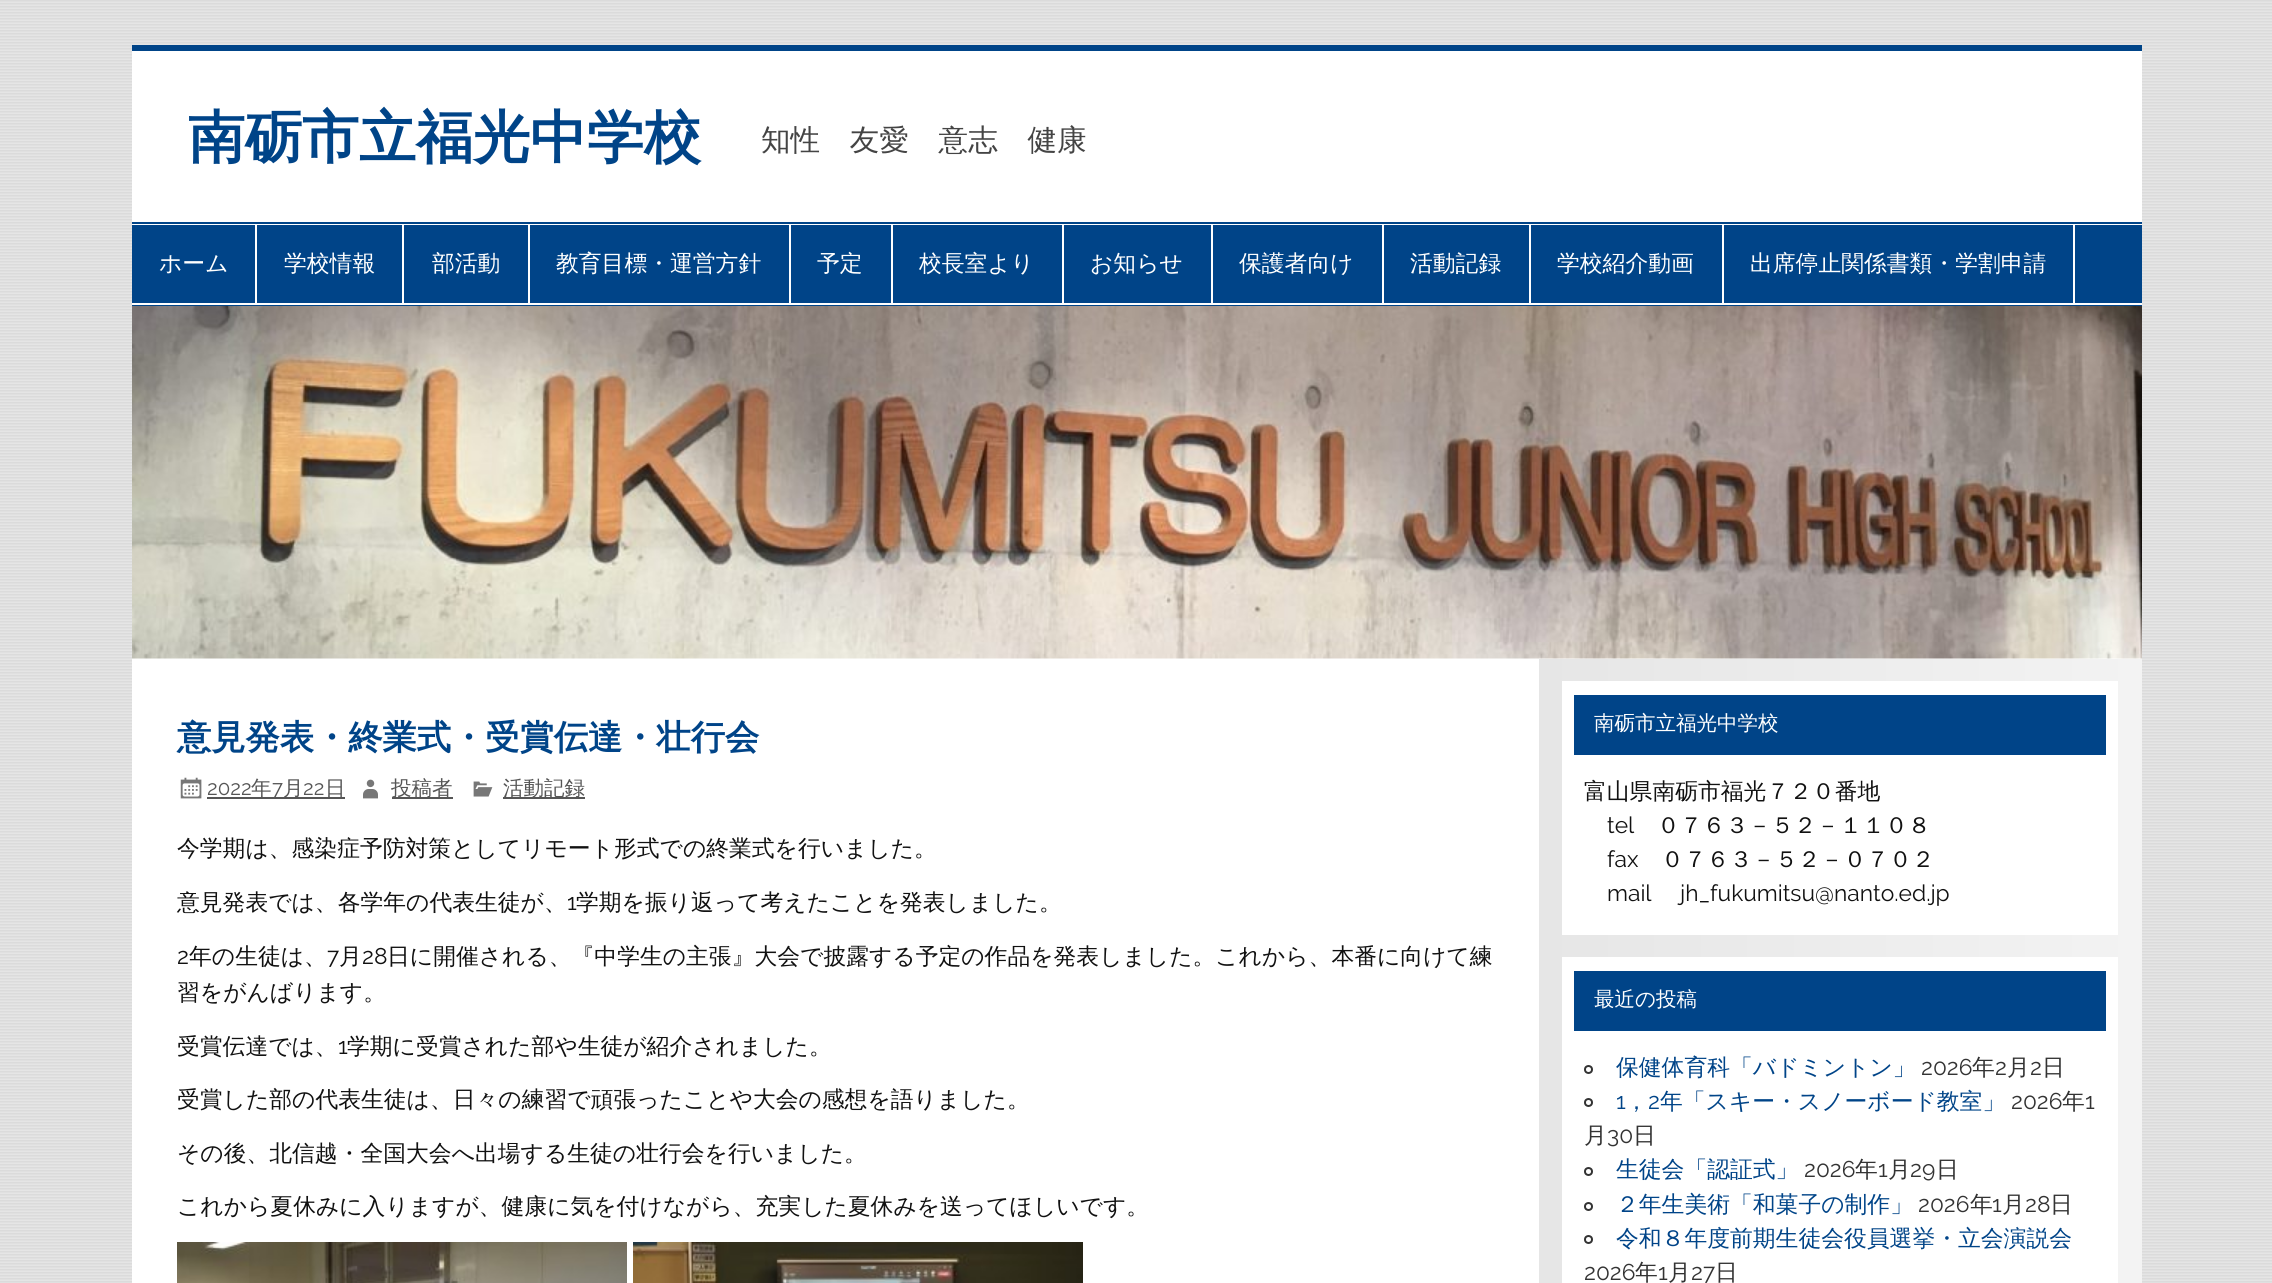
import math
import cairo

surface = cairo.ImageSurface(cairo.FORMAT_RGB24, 2272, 1283)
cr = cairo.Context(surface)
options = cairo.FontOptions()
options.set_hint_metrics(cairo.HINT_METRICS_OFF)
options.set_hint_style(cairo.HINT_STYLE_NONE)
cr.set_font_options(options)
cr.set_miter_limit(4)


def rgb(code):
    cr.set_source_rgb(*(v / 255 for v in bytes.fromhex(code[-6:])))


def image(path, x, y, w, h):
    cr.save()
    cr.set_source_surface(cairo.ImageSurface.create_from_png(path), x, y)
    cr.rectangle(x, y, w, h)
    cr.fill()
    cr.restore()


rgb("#ffffff")
cr.paint()
image("img/1.png", 0, 0, 2272, 1283)
for x, y, w, h, color in [
    (132, 51, 2010, 1232, "#ffffff"),
    (132, 45, 2010, 6, "#004488"),
    (132, 222, 2010, 2, "#004488"),
    (132, 305, 2010, 1, "#004488"),
    (132, 225, 2010, 78, "#004488"),
    (255, 225, 2, 78, "#ffffff"),
    (402, 225, 2, 78, "#ffffff"),
    (528, 225, 2, 78, "#ffffff"),
    (789, 225, 2, 78, "#ffffff"),
    (891, 225, 2, 78, "#ffffff"),
    (1062, 225, 2, 78, "#ffffff"),
    (1211, 225, 2, 78, "#ffffff"),
    (1382, 225, 2, 78, "#ffffff"),
    (1529, 225, 2, 78, "#ffffff"),
    (1722, 225, 2, 78, "#ffffff"),
    (2073, 225, 2, 78, "#ffffff"),
]:
    rgb(color)
    cr.rectangle(x, y, w, h)
    cr.fill()
image("img/2.png", 132, 306, 2010, 353)
image("img/3.png", 180, 777, 22, 22)
rgb("#555555")
cr.rectangle(207, 797, 138, 2)
cr.fill()
image("img/4.png", 363, 779, 15, 20)
cr.rectangle(392, 797, 61, 2)
cr.fill()
image("img/5.png", 473, 781, 20, 16)
cr.rectangle(503, 797, 82, 2)
cr.fill()
image("img/6.png", 177, 1242, 450, 41)
image("img/7.png", 633, 1242, 450, 41)
gradient = cairo.LinearGradient(1539, 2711, 2142, 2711)
gradient.add_color_stop_rgba(0, 0.902, 0.902, 0.902, 1)
gradient.add_color_stop_rgba(1, 0.953, 0.953, 0.953, 1)
cr.set_source(gradient)
cr.rectangle(1539, 659, 603, 624)
cr.fill()
for x, y, w, h, color in [
    (1562, 681, 556, 254, "#ffffff"),
    (1574, 695, 532, 60, "#004488"),
    (1562, 957, 556, 326, "#ffffff"),
    (1574, 971, 532, 60, "#004488"),
]:
    rgb(color)
    cr.rectangle(x, y, w, h)
    cr.fill()
cr.arc(1588.5, 1069.5, 3.5, 0, 2 * math.pi)
rgb("#333333")
cr.stroke()
cr.arc(1588.5, 1102.5, 3.5, 0, 2 * math.pi)
cr.stroke()
cr.arc(1588.5, 1171.5, 3.5, 0, 2 * math.pi)
cr.stroke()
cr.arc(1588.5, 1206.5, 3.5, 0, 2 * math.pi)
cr.stroke()
cr.arc(1588.5, 1239.5, 3.5, 0, 2 * math.pi)
cr.stroke()
cr.select_font_face("WenQuanYi Zen Hei", cairo.FONT_SLANT_NORMAL, cairo.FONT_WEIGHT_BOLD)
cr.set_font_size(57)
rgb("#004488")
cr.move_to(188, 157)
cr.show_text("南砺市立福光中学校")
cr.select_font_face("WenQuanYi Zen Hei Medium")
cr.set_font_size(29.6)
rgb("#444444")
cr.move_to(761, 150)
cr.show_text("知性　友愛　意志　健康")
cr.set_font_size(22.8)
rgb("#ffffff")
for x, y, s in [
    (159, 271, "ホーム"),
    (284, 271, "学校情報"),
    (432, 271, "部活動"),
    (556, 271, "教育目標・運営方針"),
    (817, 271, "予定"),
    (919, 271, "校長室より"),
    (1090, 271, "お知らせ"),
    (1239, 271, "保護者向け"),
    (1410, 271, "活動記録"),
    (1557, 271, "学校紹介動画"),
    (1750, 271, "出席停止関係書類・学割申請"),
]:
    cr.move_to(x, y)
    cr.show_text(s)
cr.select_font_face("WenQuanYi Zen Hei", cairo.FONT_SLANT_NORMAL, cairo.FONT_WEIGHT_BOLD)
cr.set_font_size(34.25)
rgb("#004488")
cr.move_to(177, 749)
cr.show_text("意見発表・終業式・受賞伝達・壮行会")
cr.select_font_face("Raleway")
cr.set_font_size(20.5)
rgb("#555555")
cr.move_to(207, 795)
cr.show_text("2022")
cr.select_font_face("WenQuanYi Zen Hei Medium")
cr.move_to(251, 795)
cr.show_text("年")
cr.select_font_face("Raleway")
cr.move_to(272, 795)
cr.show_text("7")
cr.select_font_face("WenQuanYi Zen Hei Medium")
cr.move_to(283, 795)
cr.show_text("月")
cr.select_font_face("Raleway")
cr.move_to(303, 795)
cr.show_text("22")
cr.select_font_face("WenQuanYi Zen Hei Medium")
for x, y, s in [
    (325, 795, "日"),
    (391, 795, "投稿者"),
    (503, 795, "活動記録"),
]:
    cr.move_to(x, y)
    cr.show_text(s)
cr.set_font_size(22.8)
rgb("#111111")
cr.move_to(177, 856)
cr.show_text("今学期は、感染症予防対策としてリモート形式での終業式を行いました。")
cr.move_to(177, 910)
cr.show_text("意見発表では、各学年の代表生徒が、")
cr.select_font_face("Raleway")
cr.move_to(567, 910)
cr.show_text("1")
cr.select_font_face("WenQuanYi Zen Hei Medium")
cr.move_to(576, 910)
cr.show_text("学期を振り返って考えたことを発表しました。")
cr.select_font_face("Raleway")
cr.move_to(177, 964)
cr.show_text("2")
cr.select_font_face("WenQuanYi Zen Hei Medium")
cr.move_to(189, 964)
cr.show_text("年の生徒は、")
cr.select_font_face("Raleway")
cr.move_to(327, 964)
cr.show_text("7")
cr.select_font_face("WenQuanYi Zen Hei Medium")
cr.move_to(339, 964)
cr.show_text("月")
cr.select_font_face("Raleway")
cr.move_to(362, 964)
cr.show_text("28")
cr.select_font_face("WenQuanYi Zen Hei Medium")
for x, y, s in [
    (387, 964, "日に開催される、『中学生の主張』大会で披露する予定の作品を発表しました。これから、本番に向けて練"),
    (177, 1000, "習をがんばります。"),
    (177, 1054, "受賞伝達では、"),
]:
    cr.move_to(x, y)
    cr.show_text(s)
cr.select_font_face("Raleway")
cr.move_to(338, 1054)
cr.show_text("1")
cr.select_font_face("WenQuanYi Zen Hei Medium")
for x, y, s in [
    (347, 1054, "学期に受賞された部や生徒が紹介されました。"),
    (177, 1107, "受賞した部の代表生徒は、日々の練習で頑張ったことや大会の感想を語りました。"),
    (177, 1161, "その後、北信越・全国大会へ出場する生徒の壮行会を行いました。"),
    (177, 1214, "これから夏休みに入りますが、健康に気を付けながら、充実した夏休みを送ってほしいです。"),
]:
    cr.move_to(x, y)
    cr.show_text(s)
cr.set_font_size(20.5)
rgb("#ffffff")
cr.move_to(1594, 730)
cr.show_text("南砺市立福光中学校")
cr.set_font_size(22.8)
rgb("#111111")
cr.move_to(1584, 799)
cr.show_text("富山県南砺市福光７２０番地")
cr.select_font_face("Raleway")
cr.move_to(1607, 833)
cr.show_text("tel")
cr.select_font_face("WenQuanYi Zen Hei Medium")
cr.move_to(1657, 833)
cr.show_text("０７６３－５２－１１０８")
cr.select_font_face("Raleway")
cr.move_to(1607, 867)
cr.show_text("fax")
cr.select_font_face("WenQuanYi Zen Hei Medium")
cr.move_to(1661, 867)
cr.show_text("０７６３－５２－０７０２")
cr.select_font_face("Raleway")
cr.move_to(1607, 901)
cr.show_text("mail")
cr.move_to(1680, 901)
cr.show_text("jh_fukumitsu@nanto.ed.jp")
cr.select_font_face("WenQuanYi Zen Hei Medium")
cr.set_font_size(20.5)
rgb("#ffffff")
cr.move_to(1594, 1006)
cr.show_text("最近の投稿")
cr.set_font_size(22.8)
rgb("#004488")
cr.move_to(1616, 1075)
cr.show_text("保健体育科「バドミントン」")
cr.select_font_face("Raleway")
rgb("#333333")
cr.move_to(1921, 1075)
cr.show_text("2026")
cr.select_font_face("WenQuanYi Zen Hei Medium")
cr.move_to(1972, 1075)
cr.show_text("年")
cr.select_font_face("Raleway")
cr.move_to(1995, 1075)
cr.show_text("2")
cr.select_font_face("WenQuanYi Zen Hei Medium")
cr.move_to(2007, 1075)
cr.show_text("月")
cr.select_font_face("Raleway")
cr.move_to(2030, 1075)
cr.show_text("2")
cr.select_font_face("WenQuanYi Zen Hei Medium")
cr.move_to(2042, 1075)
cr.show_text("日")
cr.select_font_face("Raleway")
rgb("#004488")
cr.move_to(1616, 1109)
cr.show_text("1")
cr.move_to(1648, 1109)
cr.show_text("2")
cr.select_font_face("WenQuanYi Zen Hei Medium")
cr.move_to(1660, 1109)
cr.show_text("年「スキー・スノーボード教室」")
cr.select_font_face("Raleway")
rgb("#333333")
cr.move_to(2011, 1109)
cr.show_text("2026")
cr.select_font_face("WenQuanYi Zen Hei Medium")
cr.move_to(2062, 1109)
cr.show_text("年")
cr.select_font_face("Raleway")
cr.move_to(2085, 1109)
cr.show_text("1")
cr.select_font_face("WenQuanYi Zen Hei Medium")
rgb("#004488")
cr.move_to(1625, 1109)
cr.show_text("，")
rgb("#333333")
cr.move_to(1584, 1143)
cr.show_text("月")
cr.select_font_face("Raleway")
cr.move_to(1607, 1143)
cr.show_text("30")
cr.select_font_face("WenQuanYi Zen Hei Medium")
cr.move_to(1633, 1143)
cr.show_text("日")
rgb("#004488")
cr.move_to(1616, 1177)
cr.show_text("生徒会「認証式」")
cr.select_font_face("Raleway")
rgb("#333333")
cr.move_to(1804, 1177)
cr.show_text("2026")
cr.select_font_face("WenQuanYi Zen Hei Medium")
cr.move_to(1855, 1177)
cr.show_text("年")
cr.select_font_face("Raleway")
cr.move_to(1878, 1177)
cr.show_text("1")
cr.select_font_face("WenQuanYi Zen Hei Medium")
cr.move_to(1888, 1177)
cr.show_text("月")
cr.select_font_face("Raleway")
cr.move_to(1910, 1177)
cr.show_text("29")
cr.select_font_face("WenQuanYi Zen Hei Medium")
cr.move_to(1936, 1177)
cr.show_text("日")
rgb("#004488")
cr.move_to(1616, 1212)
cr.show_text("２年生美術「和菓子の制作」")
cr.select_font_face("Raleway")
rgb("#333333")
cr.move_to(1918, 1212)
cr.show_text("2026")
cr.select_font_face("WenQuanYi Zen Hei Medium")
cr.move_to(1970, 1212)
cr.show_text("年")
cr.select_font_face("Raleway")
cr.move_to(1992, 1212)
cr.show_text("1")
cr.select_font_face("WenQuanYi Zen Hei Medium")
cr.move_to(2002, 1212)
cr.show_text("月")
cr.select_font_face("Raleway")
cr.move_to(2025, 1212)
cr.show_text("28")
cr.select_font_face("WenQuanYi Zen Hei Medium")
cr.move_to(2050, 1212)
cr.show_text("日")
rgb("#004488")
cr.move_to(1616, 1246)
cr.show_text("令和８年度前期生徒会役員選挙・立会演説会")
cr.select_font_face("Raleway")
rgb("#333333")
cr.move_to(1584, 1280)
cr.show_text("2026")
cr.select_font_face("WenQuanYi Zen Hei Medium")
cr.move_to(1635, 1280)
cr.show_text("年")
cr.select_font_face("Raleway")
cr.move_to(1658, 1280)
cr.show_text("1")
cr.select_font_face("WenQuanYi Zen Hei Medium")
cr.move_to(1668, 1280)
cr.show_text("月")
cr.select_font_face("Raleway")
cr.move_to(1691, 1280)
cr.show_text("27")
cr.select_font_face("WenQuanYi Zen Hei Medium")
cr.move_to(1715, 1280)
cr.show_text("日")
surface.write_to_png("page.png")
